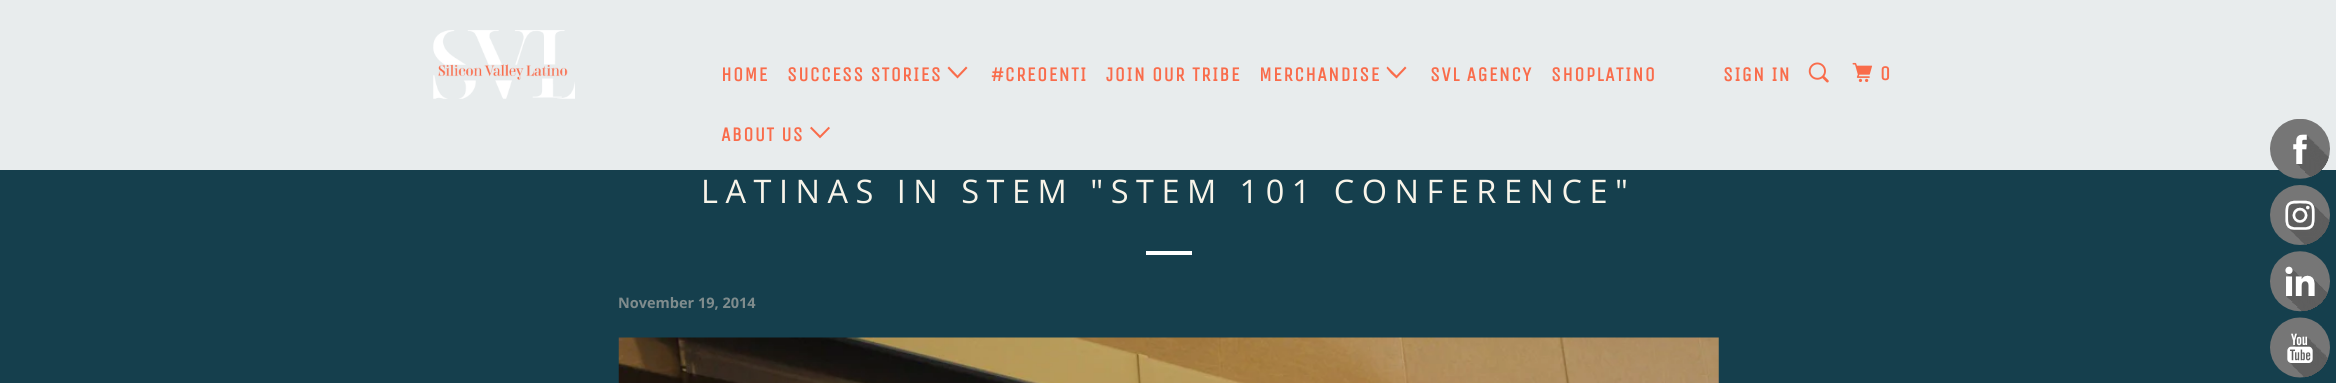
import math
import cairo

surface = cairo.ImageSurface(cairo.FORMAT_RGB24, 2336, 383)
cr = cairo.Context(surface)
options = cairo.FontOptions()
options.set_hint_metrics(cairo.HINT_METRICS_OFF)
options.set_hint_style(cairo.HINT_STYLE_NONE)
cr.set_font_options(options)
cr.set_miter_limit(4)


def rgb(code):
    cr.set_source_rgb(*(v / 255 for v in bytes.fromhex(code[-6:])))


def tracked(x, y, s, letter, word):
    cr.move_to(x, y)
    for ch in s:
        cr.show_text(ch)
        cr.rel_move_to(letter + word * (ch == ' '), 0)


def image(path, x, y, w, h):
    cr.save()
    cr.set_source_surface(cairo.ImageSurface.create_from_png(path), x, y)
    cr.rectangle(x, y, w, h)
    cr.fill()
    cr.restore()


rgb("#153f4d")
cr.paint()
rgb("#e8eced")
cr.rectangle(0, 0, 2336, 170)
cr.fill()
image("img/1.png", 433, 30, 142, 69)
rgb("#f96c4b")
cr.new_path()
cr.move_to(952.5, 73.5)
cr.line_to(947.5, 68)
cr.line_to(949, 66.5)
cr.line_to(957.5, 75.5)
cr.line_to(966, 66.5)
cr.line_to(967.5, 68)
cr.line_to(957.5, 78.5)
cr.close_path()
cr.fill()
cr.new_path()
cr.move_to(1391, 73.5)
cr.line_to(1386.5, 68)
cr.line_to(1387.5, 66.5)
cr.line_to(1396.5, 75.5)
cr.line_to(1405, 66.5)
cr.line_to(1406.5, 68)
cr.line_to(1396.5, 78.5)
cr.close_path()
cr.fill()
image("img/2.png", 810, 126, 20, 13)
image("img/3.png", 1808, 62, 21, 21)
image("img/4.png", 1852, 62, 21, 20)
rgb("#ffffff")
cr.rectangle(1146, 251, 46, 4)
cr.fill()
image("img/5.png", 618, 337, 1101, 46)
image("img/6.png", 2270, 119, 60, 259)
cr.select_font_face("Unica One", cairo.FONT_SLANT_NORMAL, cairo.FONT_WEIGHT_BOLD)
cr.set_font_size(20)
rgb("#f96c4b")
for x, y, s in [
    (721, 81, "HOME"),
    (787, 81, "SUCCESS STORIES"),
    (991, 81, "#CREOENTI"),
    (1106, 81, "JOIN OUR TRIBE"),
    (1259, 81, "MERCHANDISE"),
    (1430, 81, "SVL AGENCY"),
    (1551, 81, "SHOPLATINO"),
    (721, 141, "ABOUT US"),
    (1723, 81, "SIGN IN"),
    (1880, 80, "0"),
]:
    tracked(x, y, s, 1.25, 0)
cr.select_font_face("Open Sans")
cr.set_font_size(32.5)
rgb("#f8f4e9")
tracked(701, 203, "LATINAS IN STEM \"STEM 101 CONFERENCE\"", 7.5, 0)
cr.select_font_face("Open Sans", cairo.FONT_SLANT_NORMAL, cairo.FONT_WEIGHT_BOLD)
cr.set_font_size(14.5)
rgb("#7f8c8d")
cr.move_to(618, 308)
cr.show_text("November 19, 2014")
surface.write_to_png("page.png")
